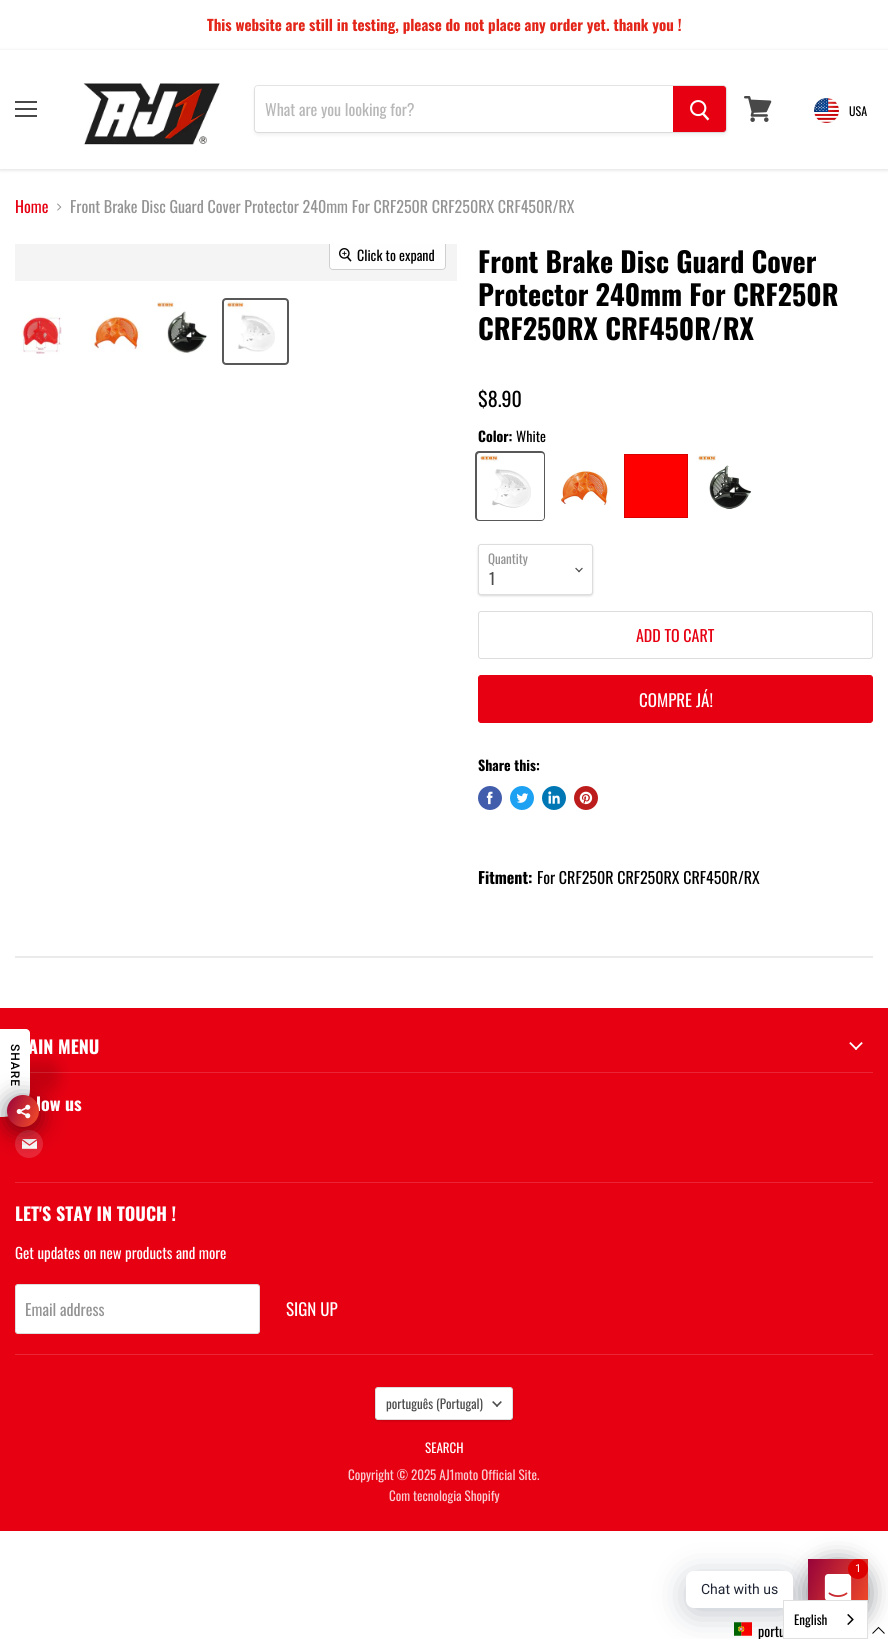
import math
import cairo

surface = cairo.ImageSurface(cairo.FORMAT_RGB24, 888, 1639)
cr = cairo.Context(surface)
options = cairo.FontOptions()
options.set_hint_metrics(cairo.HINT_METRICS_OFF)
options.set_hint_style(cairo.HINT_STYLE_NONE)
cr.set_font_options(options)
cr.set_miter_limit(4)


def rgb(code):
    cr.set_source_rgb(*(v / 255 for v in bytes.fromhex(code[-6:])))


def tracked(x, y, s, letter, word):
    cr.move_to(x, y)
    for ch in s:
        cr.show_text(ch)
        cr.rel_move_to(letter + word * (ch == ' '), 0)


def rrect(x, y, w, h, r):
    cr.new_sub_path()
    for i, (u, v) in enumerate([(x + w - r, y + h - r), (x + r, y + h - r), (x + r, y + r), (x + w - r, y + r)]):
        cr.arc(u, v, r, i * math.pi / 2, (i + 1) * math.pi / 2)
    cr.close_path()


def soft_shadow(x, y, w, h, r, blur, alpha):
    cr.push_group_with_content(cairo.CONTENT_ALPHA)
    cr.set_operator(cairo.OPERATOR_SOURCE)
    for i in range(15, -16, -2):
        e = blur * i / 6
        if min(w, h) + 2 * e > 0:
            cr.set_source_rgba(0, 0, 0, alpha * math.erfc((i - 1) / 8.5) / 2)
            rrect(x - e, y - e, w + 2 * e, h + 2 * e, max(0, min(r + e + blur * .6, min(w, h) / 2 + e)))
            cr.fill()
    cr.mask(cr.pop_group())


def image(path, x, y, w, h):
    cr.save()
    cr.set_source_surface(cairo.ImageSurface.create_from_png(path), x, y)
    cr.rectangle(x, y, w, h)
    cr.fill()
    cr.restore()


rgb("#ffffff")
cr.paint()
cr.save()
cr.set_fill_rule(cairo.FILL_RULE_EVEN_ODD)
cr.new_path()
cr.move_to(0, 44)
cr.line_to(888, 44)
cr.line_to(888, 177)
cr.line_to(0, 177)
cr.close_path()
cr.move_to(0, 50)
cr.line_to(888, 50)
cr.line_to(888, 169)
cr.line_to(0, 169)
cr.close_path()
cr.clip()
rgb("#7f7f7f")
soft_shadow(0, 51, 888, 119, 0, 2, 0.25)
cr.restore()
for x, y, w, h, color in [
    (15, 101, 22, 2, "#484848"),
    (15, 108, 22, 2, "#484848"),
    (15, 115, 22, 2, "#484848"),
]:
    rgb(color)
    cr.rectangle(x, y, w, h)
    cr.fill()
image("img/1.png", 83, 83, 137, 62)
rgb("#7f7f7f")
soft_shadow(254, 87, 473, 48, 4, 1.5, 0.11)
rrect(254.5, 85.5, 472, 47, 3.5)
cr.set_source_rgba(0.498, 0.498, 0.498, 0.2)
cr.set_line_width(1)
cr.stroke()
rgb("#ffffff")
cr.new_path()
cr.move_to(258, 86)
cr.line_to(673, 86)
cr.line_to(673, 132)
cr.line_to(258, 132)
cr.curve_to(256.5, 132, 255, 130.5, 255, 129)
cr.line_to(255, 89)
cr.curve_to(255, 87.5, 256.5, 86, 258, 86)
cr.close_path()
cr.fill()
rgb("#e60012")
cr.new_path()
cr.move_to(673.5, 86.5)
cr.line_to(723, 86.5)
cr.curve_to(724.5, 86.5, 725.5, 87.5, 725.5, 89)
cr.line_to(725.5, 129)
cr.curve_to(725.5, 130.5, 724.5, 131.5, 723, 131.5)
cr.line_to(673.5, 131.5)
cr.close_path()
cr.fill_preserve()
cr.stroke()
image("img/2.png", 690, 100, 20, 21)
image("img/3.png", 744, 96, 28, 26)
image("img/4.png", 814, 98, 25, 25)
image("img/5.png", 57, 203, 5, 8)
rgb("#f4f4f4")
cr.rectangle(15, 244, 442, 37)
cr.fill()
cr.save()
cr.rectangle(15, 244, 442, 37)
cr.clip()
rrect(329.5, 240.5, 116, 29, 3.5)
rgb("#cfcfcf")
cr.stroke()
cr.restore()
cr.set_source_rgba(1, 1, 1, 0.9)
cr.new_path()
cr.move_to(330, 244)
cr.line_to(445, 244)
cr.line_to(445, 266)
cr.curve_to(445, 267.5, 443.5, 269, 442, 269)
cr.line_to(333, 269)
cr.curve_to(331.5, 269, 330, 267.5, 330, 266)
cr.close_path()
cr.fill()
image("img/6.png", 339, 248, 13, 14)
image("img/7.png", 21, 314, 41, 40)
image("img/8.png", 91, 314, 52, 38)
image("img/9.png", 157, 301, 51, 53)
rrect(223, 299, 65, 65, 3)
rgb("#585858")
cr.set_line_width(2)
cr.stroke()
image("img/10.png", 225, 301, 50, 51)
rrect(476.5, 452.5, 67, 67, 2.5)
cr.set_line_width(3)
cr.stroke()
rrect(478, 454, 65, 65, 1.5)
rgb("#ffffff")
cr.set_line_width(2)
cr.stroke()
cr.rectangle(541, 517, 1, 1)
cr.fill()
image("img/11.png", 478, 454, 53, 54)
image("img/12.png", 551, 454, 64, 64)
rgb("#ff0000")
cr.rectangle(624.5, 454.5, 63, 63)
cr.fill_preserve()
rgb("#d90000")
cr.set_line_width(1)
cr.stroke()
image("img/13.png", 696, 454, 64, 64)
rgb("#000000")
soft_shadow(478, 545, 115, 51, 3, 1, 0.15)
rgb("#ffffff")
rrect(478.5, 544.5, 114, 50, 2.5)
cr.fill_preserve()
rgb("#dddddd")
cr.stroke()
image("img/14.png", 575, 567, 8, 6)
rrect(478.5, 611.5, 394, 47, 2.5)
cr.stroke()
rgb("#e60012")
rrect(478.5, 675.5, 394, 47, 2.5)
cr.fill_preserve()
cr.stroke()
rgb("#425dab")
cr.arc(490, 798, 12, 0, 2 * math.pi)
cr.fill()
image("img/15.png", 486, 791, 7, 14)
rgb("#1da1f2")
cr.arc(522, 798, 12, 0, 2 * math.pi)
cr.fill()
image("img/16.png", 516, 793, 13, 10)
rgb("#0077b5")
cr.arc(554, 798, 12, 0, 2 * math.pi)
cr.fill()
image("img/17.png", 548, 791, 12, 13)
rgb("#bd1c1c")
cr.arc(586, 798, 12, 0, 2 * math.pi)
cr.fill()
image("img/18.png", 579, 791, 14, 14)
for x, y, w, h, color in [
    (15, 956, 858, 2, "#ebebeb"),
    (0, 1008, 888, 523, "#e60012"),
    (30, 1072, 843, 1, "#ea2636"),
]:
    rgb(color)
    cr.rectangle(x, y, w, h)
    cr.fill()
image("img/19.png", 849, 1042, 14, 8)
cr.rectangle(15, 1182, 858, 1)
cr.fill()
cr.arc(29, 1144, 14, 0, 2 * math.pi)
cr.fill()
image("img/20.png", 22, 1139, 15, 10)
cr.rectangle(15, 1354, 858, 1)
cr.fill()
rgb("#ffffff")
rrect(15.5, 1284.5, 244, 49, 2.5)
cr.fill_preserve()
rgb("#dddddd")
cr.stroke()
rgb("#000000")
soft_shadow(375, 1388, 138, 33, 3, 1, 0.15)
rgb("#ffffff")
rrect(375.5, 1387.5, 137, 32, 2.5)
cr.fill_preserve()
rgb("#dddddd")
cr.stroke()
image("img/21.png", 492, 1401, 10, 6)
rgb("#000000")
soft_shadow(-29, 1061, 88, 30, 28, 7, 0.15)
rgb("#ffffff")
cr.new_path()
cr.move_to(0, 1117)
cr.line_to(0, 1029)
cr.line_to(26, 1029)
cr.curve_to(28, 1029, 30, 1031, 30, 1033)
cr.line_to(30, 1089)
cr.curve_to(30, 1105, 17, 1117, 2, 1117)
cr.close_path()
cr.fill()
rgb("#020610")
soft_shadow(7, 1099, 32, 32, 16, 12, 0.5)
cr.new_path()
cr.move_to(884.5, 1633.5)
cr.line_to(878.5, 1627.5)
cr.line_to(872.5, 1633.5)
rgb("#000000")
cr.stroke()
rgb("#020610")
soft_shadow(808, 1563, 60, 60, 30, 12, 0.5)
gradient = cairo.LinearGradient(802, 1572, 874, 1606)
gradient.add_color_stop_rgba(0, 0.596, 0.012, 0.227, 1)
gradient.add_color_stop_rgba(1, 0.969, 0.31, 0.157, 1)
cr.set_source(gradient)
cr.rectangle(808, 1559, 60, 41)
cr.fill()
image("img/25.png", 734, 1622, 18, 14)
rgb("#00122e")
soft_shadow(686, 1577, 107, 37, 8, 16, 0.24)
image("img/23.png", 824, 1574, 28, 26)
rgb("#dd0000")
cr.arc(858, 1569, 10, 0, 2 * math.pi)
cr.fill()
rgb("#ffffff")
rrect(686, 1571, 107, 37, 8)
cr.fill()
cr.select_font_face("Oswald", cairo.FONT_SLANT_NORMAL, cairo.FONT_WEIGHT_BOLD)
cr.set_font_size(15)
rgb("#e32619")
cr.move_to(207, 31)
cr.show_text("This website are still in testing, please do not place any order yet. thank you !")
cr.select_font_face("Oswald")
cr.set_font_size(16)
rgb("#b8b8b8")
cr.move_to(265, 116)
cr.show_text("What are you looking for?")
cr.set_font_size(12)
rgb("#000000")
cr.move_to(849, 116)
cr.show_text("USA")
cr.set_font_size(16)
rgb("#e60012")
cr.move_to(15, 213)
cr.show_text("Home")
rgb("#949494")
cr.move_to(70, 213)
cr.show_text("Front Brake Disc Guard Cover Protector 240mm For CRF250R CRF250RX CRF450R/RX")
cr.set_font_size(14)
rgb("#000000")
cr.move_to(357, 261)
cr.show_text("Click to expand")
cr.select_font_face("Oswald", cairo.FONT_SLANT_NORMAL, cairo.FONT_WEIGHT_BOLD)
cr.set_font_size(28)
for x, y, s in [
    (478, 273, "Front Brake Disc Guard Cover"),
    (478, 306, "Protector 240mm For CRF250R"),
    (478, 340, "CRF250RX CRF450R/RX"),
]:
    cr.move_to(x, y)
    cr.show_text(s)
cr.select_font_face("Oswald")
cr.set_font_size(20)
cr.move_to(478, 407)
cr.show_text("$8.90")
cr.select_font_face("Oswald", cairo.FONT_SLANT_NORMAL, cairo.FONT_WEIGHT_BOLD)
cr.set_font_size(14)
cr.move_to(478, 442)
cr.show_text("Color:")
cr.select_font_face("Oswald")
cr.move_to(516, 442)
cr.show_text("White")
cr.set_font_size(13)
rgb("#949494")
cr.move_to(488, 564)
cr.show_text("Quantity")
cr.set_font_size(16)
rgb("#4d4d4d")
cr.move_to(489, 585)
cr.show_text("1")
rgb("#e60012")
cr.move_to(636, 642)
cr.show_text("ADD TO CART")
cr.set_font_size(17)
rgb("#ffffff")
cr.move_to(639, 707)
cr.show_text("COMPRE JÁ!")
cr.select_font_face("Oswald", cairo.FONT_SLANT_NORMAL, cairo.FONT_WEIGHT_BOLD)
cr.set_font_size(14)
rgb("#000000")
cr.move_to(478, 771)
cr.show_text("Share this:")
cr.set_font_size(16)
cr.move_to(478, 884)
cr.show_text("Fitment:")
cr.select_font_face("Oswald")
cr.move_to(537, 884)
cr.show_text("For CRF250R CRF250RX CRF450R/RX")
cr.select_font_face("Oswald", cairo.FONT_SLANT_NORMAL, cairo.FONT_WEIGHT_BOLD)
cr.set_font_size(18)
rgb("#ffffff")
for x, y, s in [
    (28, 1054, "AIN MENU"),
    (36, 1111, "low us"),
    (15, 1221, "LET'S STAY IN TOUCH !"),
]:
    cr.move_to(x, y)
    cr.show_text(s)
cr.select_font_face("Oswald")
cr.set_font_size(15)
cr.move_to(15, 1259)
cr.show_text("Get updates on new products and more")
cr.set_font_size(16)
rgb("#949494")
cr.move_to(25, 1316)
cr.show_text("Email address")
cr.set_font_size(17)
rgb("#ffffff")
cr.move_to(286, 1316)
cr.show_text("SIGN UP")
cr.set_font_size(13)
rgb("#4d4d4d")
cr.move_to(386, 1409)
cr.show_text("português (Portugal)")
rgb("#ffffff")
cr.move_to(425, 1453)
cr.show_text("SEARCH")
rgb("#faccd0")
cr.move_to(348, 1480)
cr.show_text("Copyright © 2025 AJ1moto Official Site.")
cr.move_to(389, 1501)
cr.show_text("Com tecnologia Shopify")
cr.select_font_face("Roboto Medium")
cr.set_font_size(12)
rgb("#000000")
cr.save()
cr.translate(11, 1044)
cr.rotate(90 * math.pi / 180)
tracked(0, 0, "SHARE", 1, 0)
cr.restore()
gradient = cairo.LinearGradient(3.7, 1102, 42, 1120)
gradient.add_color_stop_rgba(0, 0.596, 0.012, 0.227, 1)
gradient.add_color_stop_rgba(1, 0.969, 0.31, 0.157, 1)
cr.set_source(gradient)
cr.new_path()
cr.arc(23, 1111, 16, 0, 2 * math.pi)
cr.fill()
image("img/22.png", 16, 1104, 15, 15)
cr.select_font_face("Roboto")
cr.set_font_size(11)
rgb("#ffffff")
cr.move_to(855, 1572)
cr.show_text("1")
cr.set_font_size(14)
rgb("#1e2433")
cr.move_to(701, 1594)
cr.show_text("Chat with us")
cr.select_font_face("Oswald")
rgb("#000000")
cr.move_to(758, 1637)
cr.show_text("portu")
rgb("#ffffff")
cr.rectangle(783.5, 1600.5, 84, 38)
cr.fill_preserve()
rgb("#e0e0e0")
cr.stroke()
image("img/24.png", 847, 1614, 7, 11)
cr.set_font_size(13)
rgb("#000000")
cr.move_to(794, 1625)
cr.show_text("English")
surface.write_to_png("page.png")
